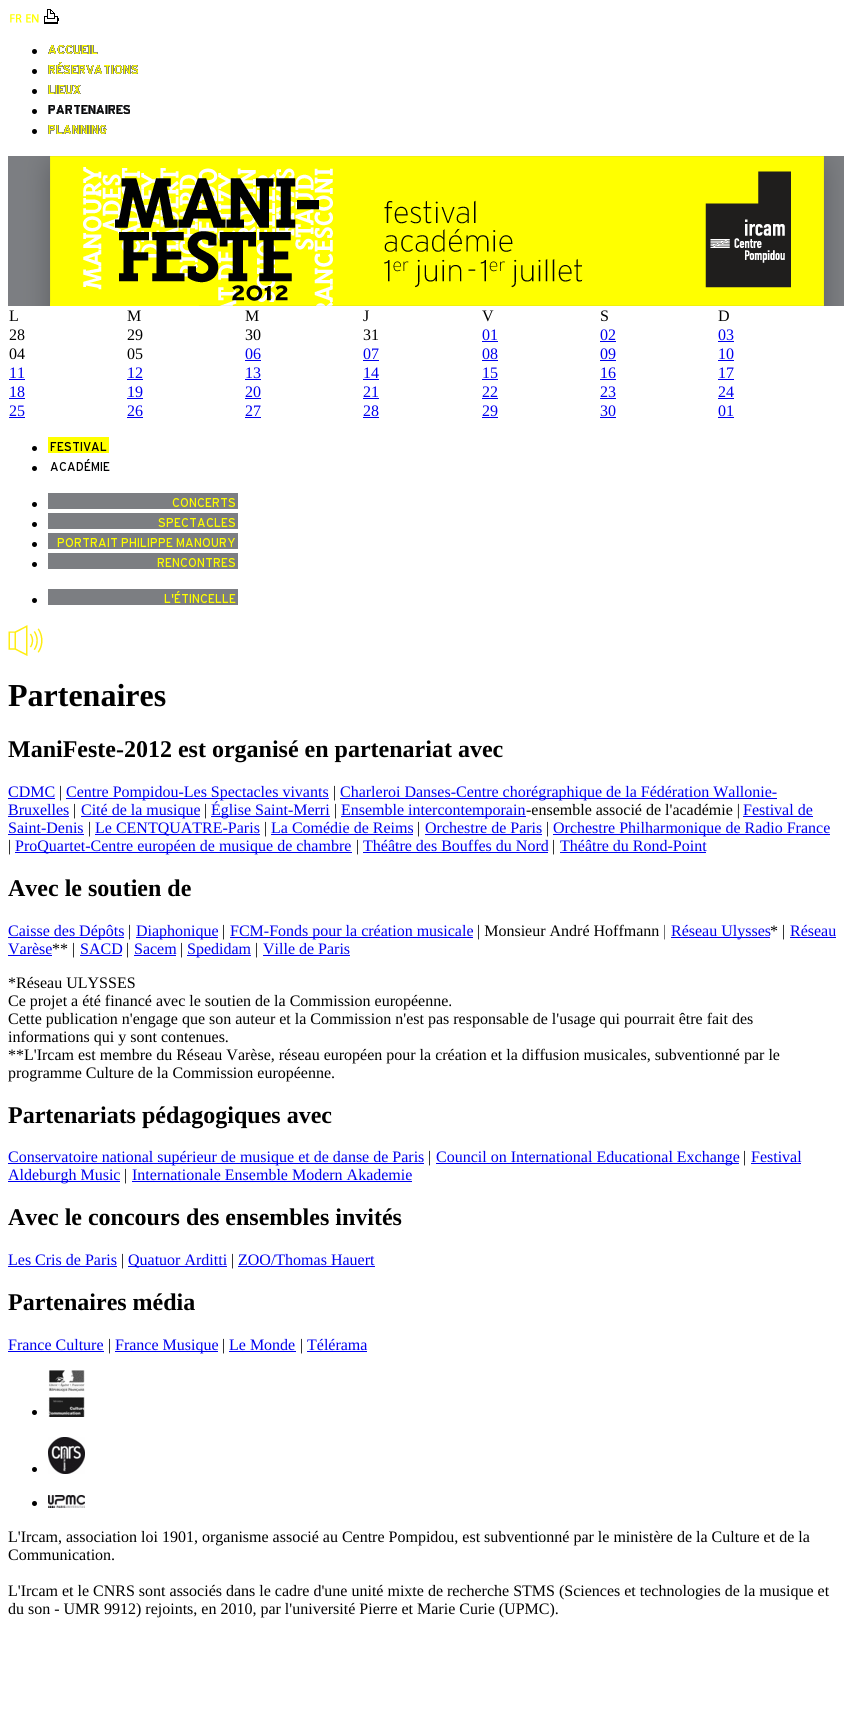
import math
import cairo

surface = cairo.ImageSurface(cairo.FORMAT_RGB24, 844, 1734)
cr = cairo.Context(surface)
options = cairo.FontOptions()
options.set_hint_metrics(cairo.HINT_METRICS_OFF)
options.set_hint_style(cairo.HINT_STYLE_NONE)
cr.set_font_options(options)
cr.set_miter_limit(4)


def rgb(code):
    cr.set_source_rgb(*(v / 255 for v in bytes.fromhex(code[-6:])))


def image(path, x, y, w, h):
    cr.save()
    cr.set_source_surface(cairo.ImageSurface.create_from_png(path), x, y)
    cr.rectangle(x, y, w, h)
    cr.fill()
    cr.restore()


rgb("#ffffff")
cr.paint()
image("img/1.png", 10, 14, 12, 9)
image("img/2.png", 26, 14, 13, 9)
image("img/3.png", 44, 9, 15, 15)
rgb("#000000")
cr.arc(34.5, 51.5, 2.5, 0, 2 * math.pi)
cr.fill()
image("img/4.png", 48, 45, 50, 9)
cr.arc(34.5, 71.5, 2.5, 0, 2 * math.pi)
cr.fill()
image("img/5.png", 48, 62, 90, 12)
cr.arc(34.5, 91.5, 2.5, 0, 2 * math.pi)
cr.fill()
image("img/6.png", 48, 85, 33, 9)
cr.arc(34.5, 111.5, 2.5, 0, 2 * math.pi)
cr.fill()
image("img/7.png", 48, 105, 82, 9)
cr.arc(34.5, 131.5, 2.5, 0, 2 * math.pi)
cr.fill()
image("img/8.png", 48, 125, 59, 9)
image("img/9.png", 8, 156, 836, 150)
for x, y, w, h, color in [
    (482, 341, 16, 1, "#0000ee"),
    (600, 341, 16, 1, "#0000ee"),
    (718, 341, 16, 1, "#0000ee"),
    (245, 360, 16, 1, "#0000ee"),
    (363, 360, 16, 1, "#0000ee"),
    (482, 360, 16, 1, "#0000ee"),
    (600, 360, 16, 1, "#0000ee"),
    (718, 360, 16, 1, "#0000ee"),
    (9, 379, 16, 1, "#0000ee"),
    (127, 379, 16, 1, "#0000ee"),
    (245, 379, 16, 1, "#0000ee"),
    (363, 379, 16, 1, "#0000ee"),
    (482, 379, 16, 1, "#0000ee"),
    (600, 379, 16, 1, "#0000ee"),
    (718, 379, 16, 1, "#0000ee"),
    (9, 398, 16, 1, "#0000ee"),
    (127, 398, 16, 1, "#0000ee"),
    (245, 398, 16, 1, "#0000ee"),
    (363, 398, 16, 1, "#0000ee"),
    (482, 398, 16, 1, "#0000ee"),
    (600, 398, 16, 1, "#0000ee"),
    (718, 398, 16, 1, "#0000ee"),
    (9, 417, 16, 1, "#0000ee"),
    (127, 417, 16, 1, "#0000ee"),
    (245, 417, 16, 1, "#0000ee"),
    (363, 417, 16, 1, "#0000ee"),
    (482, 417, 16, 1, "#0000ee"),
    (600, 417, 16, 1, "#0000ee"),
    (718, 417, 16, 1, "#0000ee"),
]:
    rgb(color)
    cr.rectangle(x, y, w, h)
    cr.fill()
rgb("#000000")
cr.arc(34.5, 448.5, 2.5, 0, 2 * math.pi)
cr.fill()
image("img/10.png", 48, 437, 61, 16)
cr.arc(34.5, 468.5, 2.5, 0, 2 * math.pi)
cr.fill()
image("img/11.png", 50, 459, 60, 12)
cr.arc(34.5, 504.5, 2.5, 0, 2 * math.pi)
cr.fill()
image("img/12.png", 48, 493, 190, 16)
cr.arc(34.5, 524.5, 2.5, 0, 2 * math.pi)
cr.fill()
image("img/13.png", 48, 513, 190, 16)
cr.arc(34.5, 544.5, 2.5, 0, 2 * math.pi)
cr.fill()
image("img/14.png", 48, 533, 190, 16)
cr.arc(34.5, 564.5, 2.5, 0, 2 * math.pi)
cr.fill()
image("img/15.png", 48, 553, 190, 16)
cr.arc(34.5, 600.5, 2.5, 0, 2 * math.pi)
cr.fill()
image("img/16.png", 48, 589, 190, 16)
image("img/17.png", 8, 625, 35, 31)
for x, y, w, h, color in [
    (8, 798, 47, 1, "#0000ee"),
    (66, 798, 263, 1, "#0000ee"),
    (340, 798, 437, 1, "#0000ee"),
    (8, 816, 61, 1, "#0000ee"),
    (81, 816, 119, 1, "#0000ee"),
    (211, 816, 119, 1, "#0000ee"),
    (341, 816, 185, 1, "#0000ee"),
    (743, 816, 70, 1, "#0000ee"),
    (8, 834, 76, 1, "#0000ee"),
    (95, 834, 165, 1, "#0000ee"),
    (271, 834, 142, 1, "#0000ee"),
    (425, 834, 117, 1, "#0000ee"),
    (553, 834, 277, 1, "#0000ee"),
    (15, 852, 337, 1, "#0000ee"),
    (363, 852, 185, 1, "#0000ee"),
    (560, 852, 146, 1, "#0000ee"),
    (8, 937, 116, 1, "#0000ee"),
    (136, 937, 82, 1, "#0000ee"),
    (230, 937, 243, 1, "#0000ee"),
    (671, 937, 99, 1, "#0000ee"),
    (790, 937, 46, 1, "#0000ee"),
    (8, 955, 44, 1, "#0000ee"),
    (80, 955, 42, 1, "#0000ee"),
    (134, 955, 42, 1, "#0000ee"),
    (187, 955, 64, 1, "#0000ee"),
    (263, 955, 87, 1, "#0000ee"),
    (8, 1163, 416, 1, "#0000ee"),
    (436, 1163, 303, 1, "#0000ee"),
    (751, 1163, 50, 1, "#0000ee"),
    (8, 1181, 112, 1, "#0000ee"),
    (132, 1181, 280, 1, "#0000ee"),
    (8, 1266, 109, 1, "#0000ee"),
    (128, 1266, 99, 1, "#0000ee"),
    (238, 1266, 137, 1, "#0000ee"),
    (8, 1351, 96, 1, "#0000ee"),
    (115, 1351, 103, 1, "#0000ee"),
    (229, 1351, 67, 1, "#0000ee"),
    (307, 1351, 60, 1, "#0000ee"),
]:
    rgb(color)
    cr.rectangle(x, y, w, h)
    cr.fill()
rgb("#000000")
cr.arc(34.5, 1412.5, 2.5, 0, 2 * math.pi)
cr.fill()
image("img/18.png", 48, 1370, 37, 47)
cr.arc(34.5, 1469.5, 2.5, 0, 2 * math.pi)
cr.fill()
image("img/19.png", 48, 1437, 37, 37)
cr.arc(34.5, 1503.5, 2.5, 0, 2 * math.pi)
cr.fill()
image("img/20.png", 48, 1495, 37, 13)
cr.select_font_face("Liberation Serif")
cr.set_font_size(16)
for x, y, s in [
    (9, 321, "L"),
    (127, 321, "M"),
    (245, 321, "M"),
    (363, 321, "J"),
    (482, 321, "V"),
    (600, 321, "S"),
    (718, 321, "D"),
    (9, 340, "28"),
    (127, 340, "29"),
    (245, 340, "30"),
    (363, 340, "31"),
]:
    cr.move_to(x, y)
    cr.show_text(s)
rgb("#0000ee")
for x, y, s in [
    (482, 340, "01"),
    (600, 340, "02"),
    (718, 340, "03"),
]:
    cr.move_to(x, y)
    cr.show_text(s)
rgb("#000000")
cr.move_to(9, 359)
cr.show_text("04")
cr.move_to(127, 359)
cr.show_text("05")
rgb("#0000ee")
for x, y, s in [
    (245, 359, "06"),
    (363, 359, "07"),
    (482, 359, "08"),
    (600, 359, "09"),
    (718, 359, "10"),
    (9, 378, "11"),
    (127, 378, "12"),
    (245, 378, "13"),
    (363, 378, "14"),
    (482, 378, "15"),
    (600, 378, "16"),
    (718, 378, "17"),
    (9, 397, "18"),
    (127, 397, "19"),
    (245, 397, "20"),
    (363, 397, "21"),
    (482, 397, "22"),
    (600, 397, "23"),
    (718, 397, "24"),
    (9, 416, "25"),
    (127, 416, "26"),
    (245, 416, "27"),
    (363, 416, "28"),
    (482, 416, "29"),
    (600, 416, "30"),
    (718, 416, "01"),
]:
    cr.move_to(x, y)
    cr.show_text(s)
cr.select_font_face("Liberation Serif", cairo.FONT_SLANT_NORMAL, cairo.FONT_WEIGHT_BOLD)
cr.set_font_size(32)
rgb("#000000")
cr.move_to(8, 706)
cr.show_text("Partenaires")
cr.set_font_size(24)
cr.move_to(8, 757)
cr.show_text("ManiFeste-2012 est organisé en partenariat avec")
cr.select_font_face("Liberation Serif")
cr.set_font_size(16)
rgb("#0000ee")
cr.move_to(8, 797)
cr.show_text("CDMC")
rgb("#000000")
cr.move_to(59, 797)
cr.show_text("|")
rgb("#0000ee")
cr.move_to(66, 797)
cr.show_text("Centre Pompidou-Les Spectacles vivants")
rgb("#000000")
cr.move_to(333, 797)
cr.show_text("|")
rgb("#0000ee")
cr.move_to(340, 797)
cr.show_text("Charleroi Danses-Centre chorégraphique de la Fédération Wallonie-")
cr.move_to(8, 815)
cr.show_text("Bruxelles")
rgb("#000000")
cr.move_to(73, 815)
cr.show_text("|")
rgb("#0000ee")
cr.move_to(81, 815)
cr.show_text("Cité de la musique")
rgb("#000000")
cr.move_to(204, 815)
cr.show_text("|")
rgb("#0000ee")
cr.move_to(211, 815)
cr.show_text("Église Saint-Merri")
rgb("#000000")
cr.move_to(334, 815)
cr.show_text("|")
rgb("#0000ee")
cr.move_to(341, 815)
cr.show_text("Ensemble intercontemporain")
rgb("#000000")
cr.move_to(526, 815)
cr.show_text("-ensemble associé de l'académie |")
rgb("#0000ee")
cr.move_to(743, 815)
cr.show_text("Festival de")
cr.move_to(8, 833)
cr.show_text("Saint-Denis")
rgb("#000000")
cr.move_to(88, 833)
cr.show_text("|")
rgb("#0000ee")
cr.move_to(95, 833)
cr.show_text("Le CENTQUATRE-Paris")
rgb("#000000")
cr.move_to(264, 833)
cr.show_text("|")
rgb("#0000ee")
cr.move_to(271, 833)
cr.show_text("La Comédie de Reims")
rgb("#000000")
cr.move_to(417, 833)
cr.show_text("|")
rgb("#0000ee")
cr.move_to(425, 833)
cr.show_text("Orchestre de Paris")
rgb("#000000")
cr.move_to(546, 833)
cr.show_text("|")
rgb("#0000ee")
cr.move_to(553, 833)
cr.show_text("Orchestre Philharmonique de Radio France")
rgb("#000000")
cr.move_to(8, 851)
cr.show_text("|")
rgb("#0000ee")
cr.move_to(15, 851)
cr.show_text("ProQuartet-Centre européen de musique de chambre")
rgb("#000000")
cr.move_to(356, 851)
cr.show_text("|")
rgb("#0000ee")
cr.move_to(363, 851)
cr.show_text("Théâtre des Bouffes du Nord")
rgb("#000000")
cr.move_to(552, 851)
cr.show_text("|")
rgb("#0000ee")
cr.move_to(560, 851)
cr.show_text("Théâtre du Rond-Point")
cr.select_font_face("Liberation Serif", cairo.FONT_SLANT_NORMAL, cairo.FONT_WEIGHT_BOLD)
cr.set_font_size(24)
rgb("#000000")
cr.move_to(8, 896)
cr.show_text("Avec le soutien de")
cr.select_font_face("Liberation Serif")
cr.set_font_size(16)
rgb("#0000ee")
cr.move_to(8, 936)
cr.show_text("Caisse des Dépôts")
rgb("#000000")
cr.move_to(128, 936)
cr.show_text("|")
rgb("#0000ee")
cr.move_to(136, 936)
cr.show_text("Diaphonique")
rgb("#000000")
cr.move_to(222, 936)
cr.show_text("|")
rgb("#0000ee")
cr.move_to(230, 936)
cr.show_text("FCM-Fonds pour la création musicale")
rgb("#000000")
cr.move_to(477, 936)
cr.show_text("| Monsieur André Hoffmann |")
rgb("#0000ee")
cr.move_to(671, 936)
cr.show_text("Réseau Ulysses")
rgb("#000000")
cr.move_to(770, 936)
cr.show_text("* |")
rgb("#0000ee")
cr.move_to(790, 936)
cr.show_text("Réseau")
cr.move_to(8, 954)
cr.show_text("Varèse")
rgb("#000000")
cr.move_to(52, 954)
cr.show_text("** |")
rgb("#0000ee")
cr.move_to(80, 954)
cr.show_text("SACD")
rgb("#000000")
cr.move_to(126, 954)
cr.show_text("|")
rgb("#0000ee")
cr.move_to(134, 954)
cr.show_text("Sacem")
rgb("#000000")
cr.move_to(180, 954)
cr.show_text("|")
rgb("#0000ee")
cr.move_to(187, 954)
cr.show_text("Spedidam")
rgb("#000000")
cr.move_to(255, 954)
cr.show_text("|")
rgb("#0000ee")
cr.move_to(263, 954)
cr.show_text("Ville de Paris")
rgb("#000000")
for x, y, s in [
    (8, 988, "*Réseau ULYSSES"),
    (8, 1006, "Ce projet a été financé avec le soutien de la Commission européenne."),
    (8, 1024, "Cette publication n'engage que son auteur et la Commission n'est pas responsable de l'usage qui pourrait être fait des"),
    (8, 1042, "informations qui y sont contenues."),
    (8, 1060, "**L'Ircam est membre du Réseau Varèse, réseau européen pour la création et la diffusion musicales, subventionné par le"),
    (8, 1078, "programme Culture de la Commission européenne."),
]:
    cr.move_to(x, y)
    cr.show_text(s)
cr.select_font_face("Liberation Serif", cairo.FONT_SLANT_NORMAL, cairo.FONT_WEIGHT_BOLD)
cr.set_font_size(24)
cr.move_to(8, 1123)
cr.show_text("Partenariats pédagogiques avec")
cr.select_font_face("Liberation Serif")
cr.set_font_size(16)
rgb("#0000ee")
cr.move_to(8, 1162)
cr.show_text("Conservatoire national supérieur de musique et de danse de Paris")
rgb("#000000")
cr.move_to(428, 1162)
cr.show_text("|")
rgb("#0000ee")
cr.move_to(436, 1162)
cr.show_text("Council on International Educational Exchange")
rgb("#000000")
cr.move_to(743, 1162)
cr.show_text("|")
rgb("#0000ee")
cr.move_to(751, 1162)
cr.show_text("Festival")
cr.move_to(8, 1180)
cr.show_text("Aldeburgh Music")
rgb("#000000")
cr.move_to(124, 1180)
cr.show_text("|")
rgb("#0000ee")
cr.move_to(132, 1180)
cr.show_text("Internationale Ensemble Modern Akademie")
cr.select_font_face("Liberation Serif", cairo.FONT_SLANT_NORMAL, cairo.FONT_WEIGHT_BOLD)
cr.set_font_size(24)
rgb("#000000")
cr.move_to(8, 1225)
cr.show_text("Avec le concours des ensembles invités")
cr.select_font_face("Liberation Serif")
cr.set_font_size(16)
rgb("#0000ee")
cr.move_to(8, 1265)
cr.show_text("Les Cris de Paris")
rgb("#000000")
cr.move_to(121, 1265)
cr.show_text("|")
rgb("#0000ee")
cr.move_to(128, 1265)
cr.show_text("Quatuor Arditti")
rgb("#000000")
cr.move_to(231, 1265)
cr.show_text("|")
rgb("#0000ee")
cr.move_to(238, 1265)
cr.show_text("ZOO/Thomas Hauert")
cr.select_font_face("Liberation Serif", cairo.FONT_SLANT_NORMAL, cairo.FONT_WEIGHT_BOLD)
cr.set_font_size(24)
rgb("#000000")
cr.move_to(8, 1310)
cr.show_text("Partenaires média")
cr.select_font_face("Liberation Serif")
cr.set_font_size(16)
rgb("#0000ee")
cr.move_to(8, 1350)
cr.show_text("France Culture")
rgb("#000000")
cr.move_to(108, 1350)
cr.show_text("|")
rgb("#0000ee")
cr.move_to(115, 1350)
cr.show_text("France Musique")
rgb("#000000")
cr.move_to(222, 1350)
cr.show_text("|")
rgb("#0000ee")
cr.move_to(229, 1350)
cr.show_text("Le Monde")
rgb("#000000")
cr.move_to(300, 1350)
cr.show_text("|")
rgb("#0000ee")
cr.move_to(307, 1350)
cr.show_text("Télérama")
rgb("#000000")
for x, y, s in [
    (8, 1542, "L'Ircam, association loi 1901, organisme associé au Centre Pompidou, est subventionné par le ministère de la Culture et de la"),
    (8, 1560, "Communication."),
    (8, 1596, "L'Ircam et le CNRS sont associés dans le cadre d'une unité mixte de recherche STMS (Sciences et technologies de la musique et"),
    (8, 1614, "du son - UMR 9912) rejoints, en 2010, par l'université Pierre et Marie Curie (UPMC)."),
]:
    cr.move_to(x, y)
    cr.show_text(s)
surface.write_to_png("page.png")
